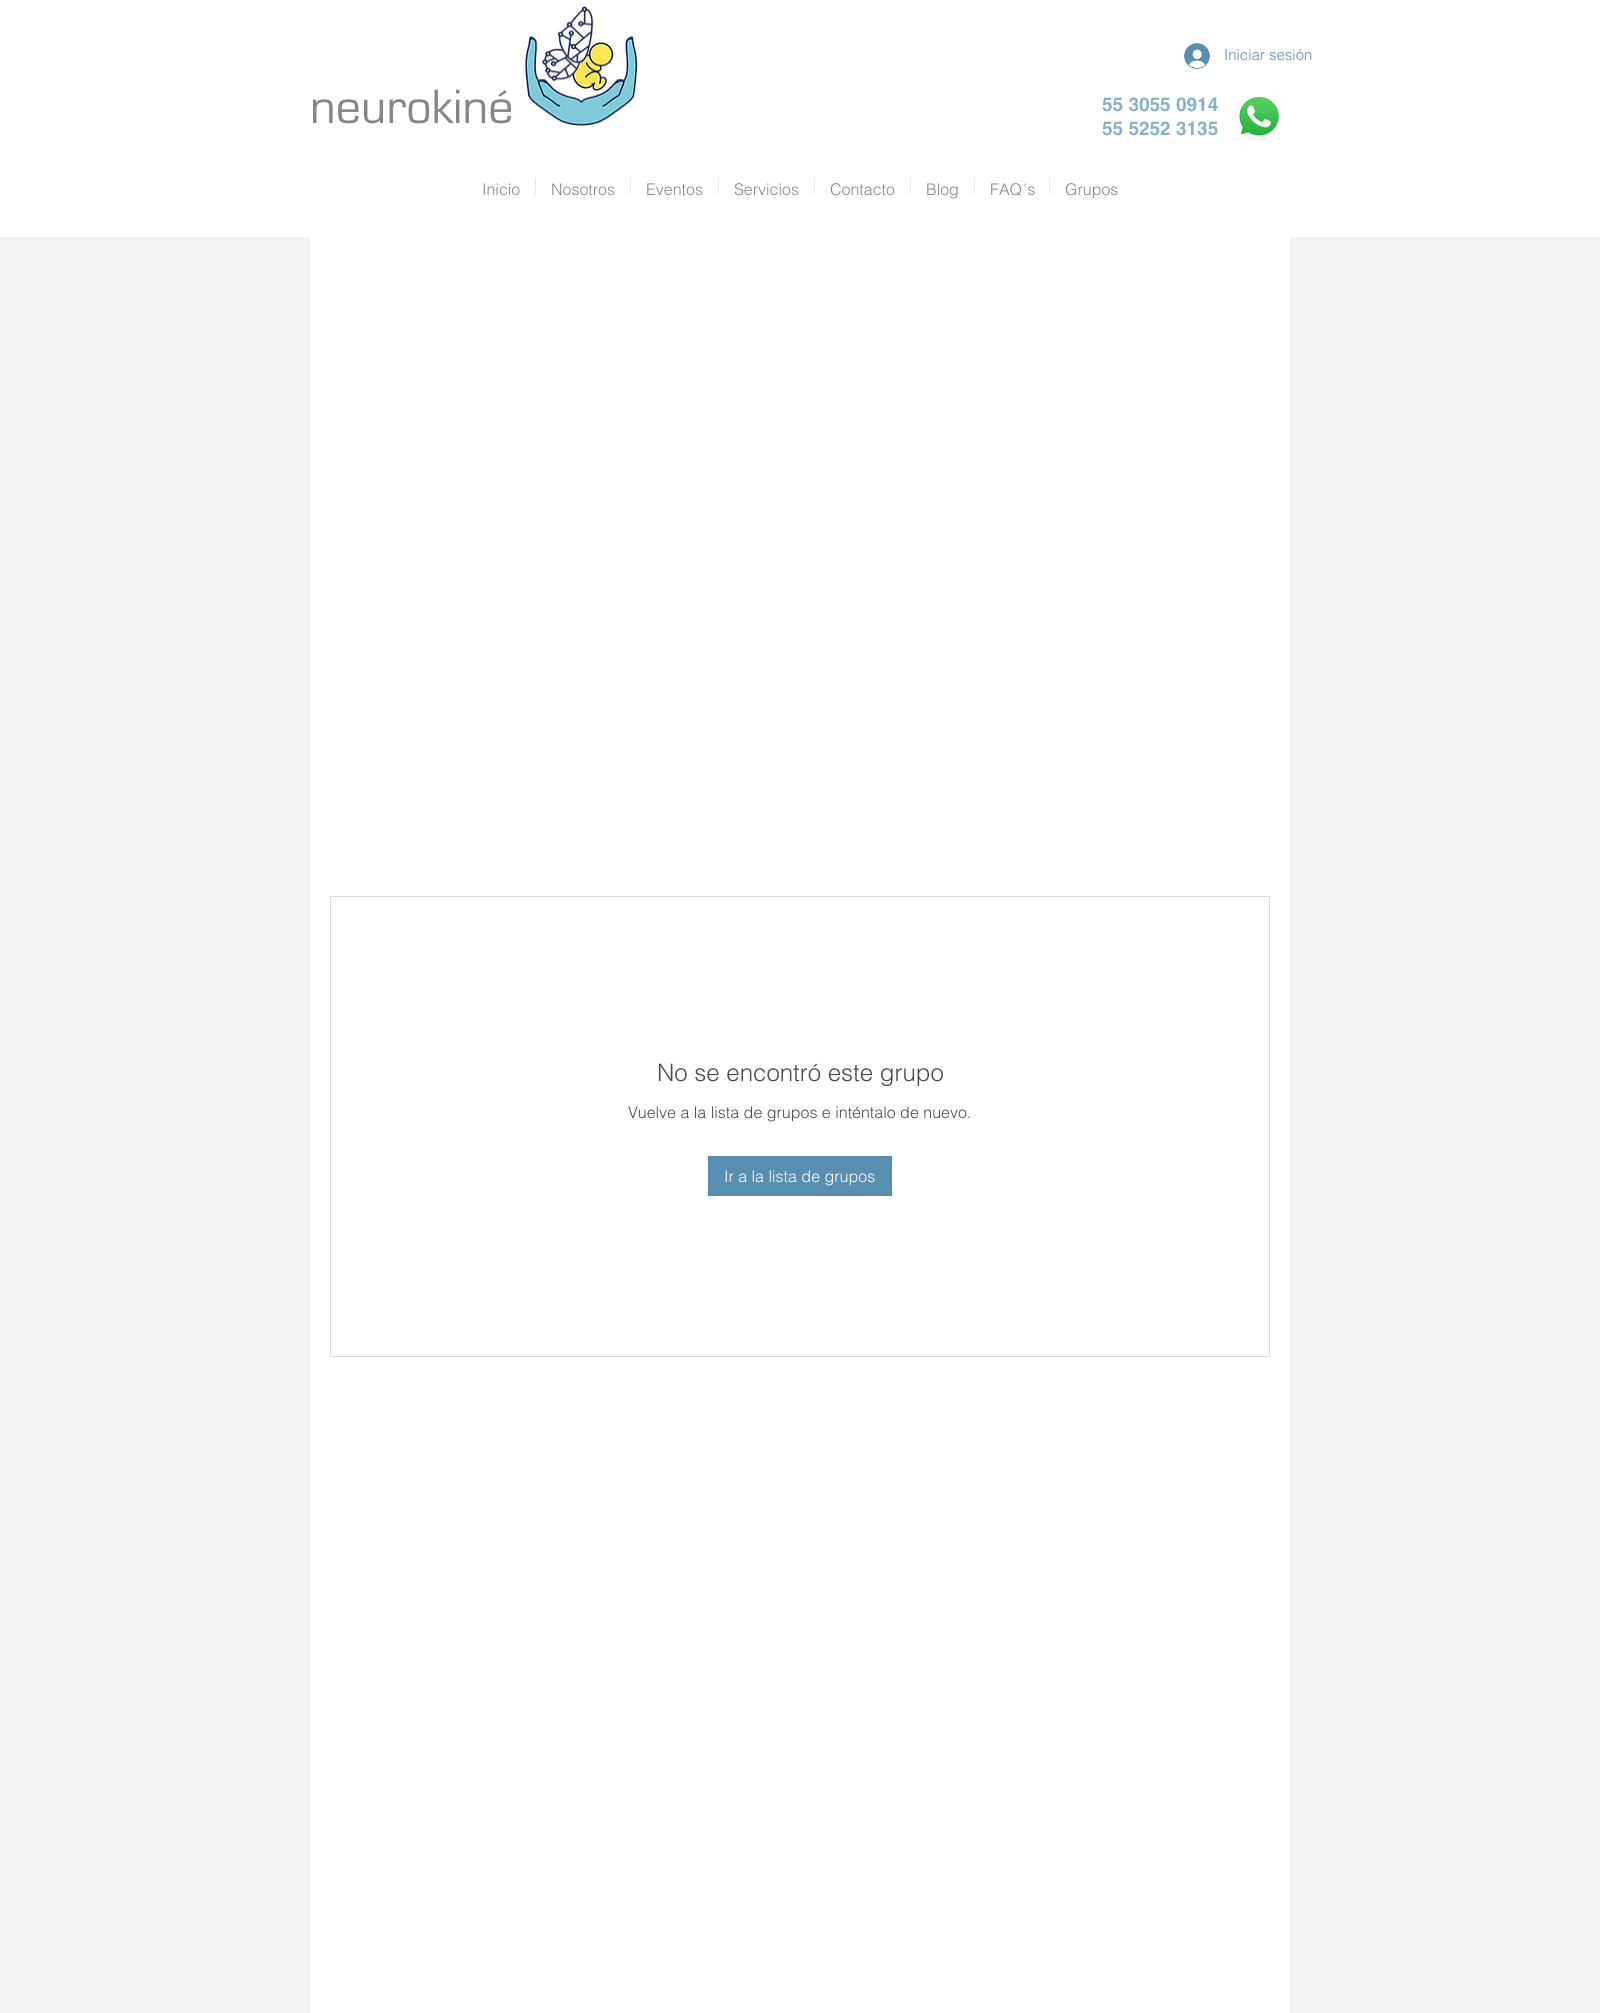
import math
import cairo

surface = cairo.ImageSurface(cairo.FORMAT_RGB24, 1600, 2013)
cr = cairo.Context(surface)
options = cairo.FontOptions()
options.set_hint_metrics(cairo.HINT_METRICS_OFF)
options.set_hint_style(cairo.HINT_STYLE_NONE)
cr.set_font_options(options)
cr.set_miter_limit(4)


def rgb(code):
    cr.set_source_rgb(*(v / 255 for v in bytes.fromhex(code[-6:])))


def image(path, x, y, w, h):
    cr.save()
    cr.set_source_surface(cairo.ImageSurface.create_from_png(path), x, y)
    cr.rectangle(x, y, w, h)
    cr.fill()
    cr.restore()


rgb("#f3f3f3")
cr.paint()
rgb("#ffffff")
cr.rectangle(0, 0, 1600, 237)
cr.fill()
image("img/1.png", 525, 6, 113, 121)
image("img/2.png", 1184, 43, 26, 26)
image("img/3.png", 1235, 96, 48, 44)
for x, y, w, h, color in [
    (535, 178, 1, 16, "#e9e9e9"),
    (630, 178, 1, 16, "#e9e9e9"),
    (718, 178, 1, 16, "#e9e9e9"),
    (814, 178, 1, 16, "#e9e9e9"),
    (910, 178, 1, 16, "#e9e9e9"),
    (974, 178, 1, 16, "#e9e9e9"),
    (1049, 178, 1, 16, "#e9e9e9"),
    (310, 237, 980, 1776, "#ffffff"),
]:
    rgb(color)
    cr.rectangle(x, y, w, h)
    cr.fill()
cr.rectangle(330.5, 896.5, 939, 460)
rgb("#dbdbdb")
cr.set_line_width(1)
cr.stroke()
rgb("#588fb1")
cr.rectangle(708, 1156, 184, 40)
cr.fill()
cr.select_font_face("helvetica Light")
cr.set_font_size(15)
cr.move_to(1224, 60)
cr.show_text("Iniciar sesión")
cr.select_font_face("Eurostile")
cr.set_font_size(50)
rgb("#868686")
cr.move_to(310, 123)
cr.show_text("neurokiné")
cr.select_font_face("helvetica", cairo.FONT_SLANT_NORMAL, cairo.FONT_WEIGHT_BOLD)
cr.set_font_size(19)
rgb("#87b1cb")
cr.move_to(1102, 111)
cr.show_text("55 3055 0914")
cr.move_to(1102, 135)
cr.show_text("55 5252 3135")
cr.select_font_face("helvetica Light")
cr.set_font_size(16)
rgb("#868686")
for x, y, s in [
    (482, 195, "Inicio"),
    (551, 195, "Nosotros"),
    (646, 195, "Eventos"),
    (734, 195, "Servicios"),
    (830, 195, "Contacto"),
    (926, 195, "Blog"),
    (990, 195, "FAQ´s"),
    (1065, 195, "Grupos"),
]:
    cr.move_to(x, y)
    cr.show_text(s)
cr.set_font_size(24)
rgb("#4a4a4a")
cr.move_to(657, 1081)
cr.show_text("No se encontró este grupo")
cr.set_font_size(16)
cr.move_to(628, 1118)
cr.show_text("Vuelve a la lista de grupos e inténtalo de nuevo.")
rgb("#ffffff")
cr.move_to(724, 1182)
cr.show_text("Ir a la lista de grupos")
surface.write_to_png("page.png")
